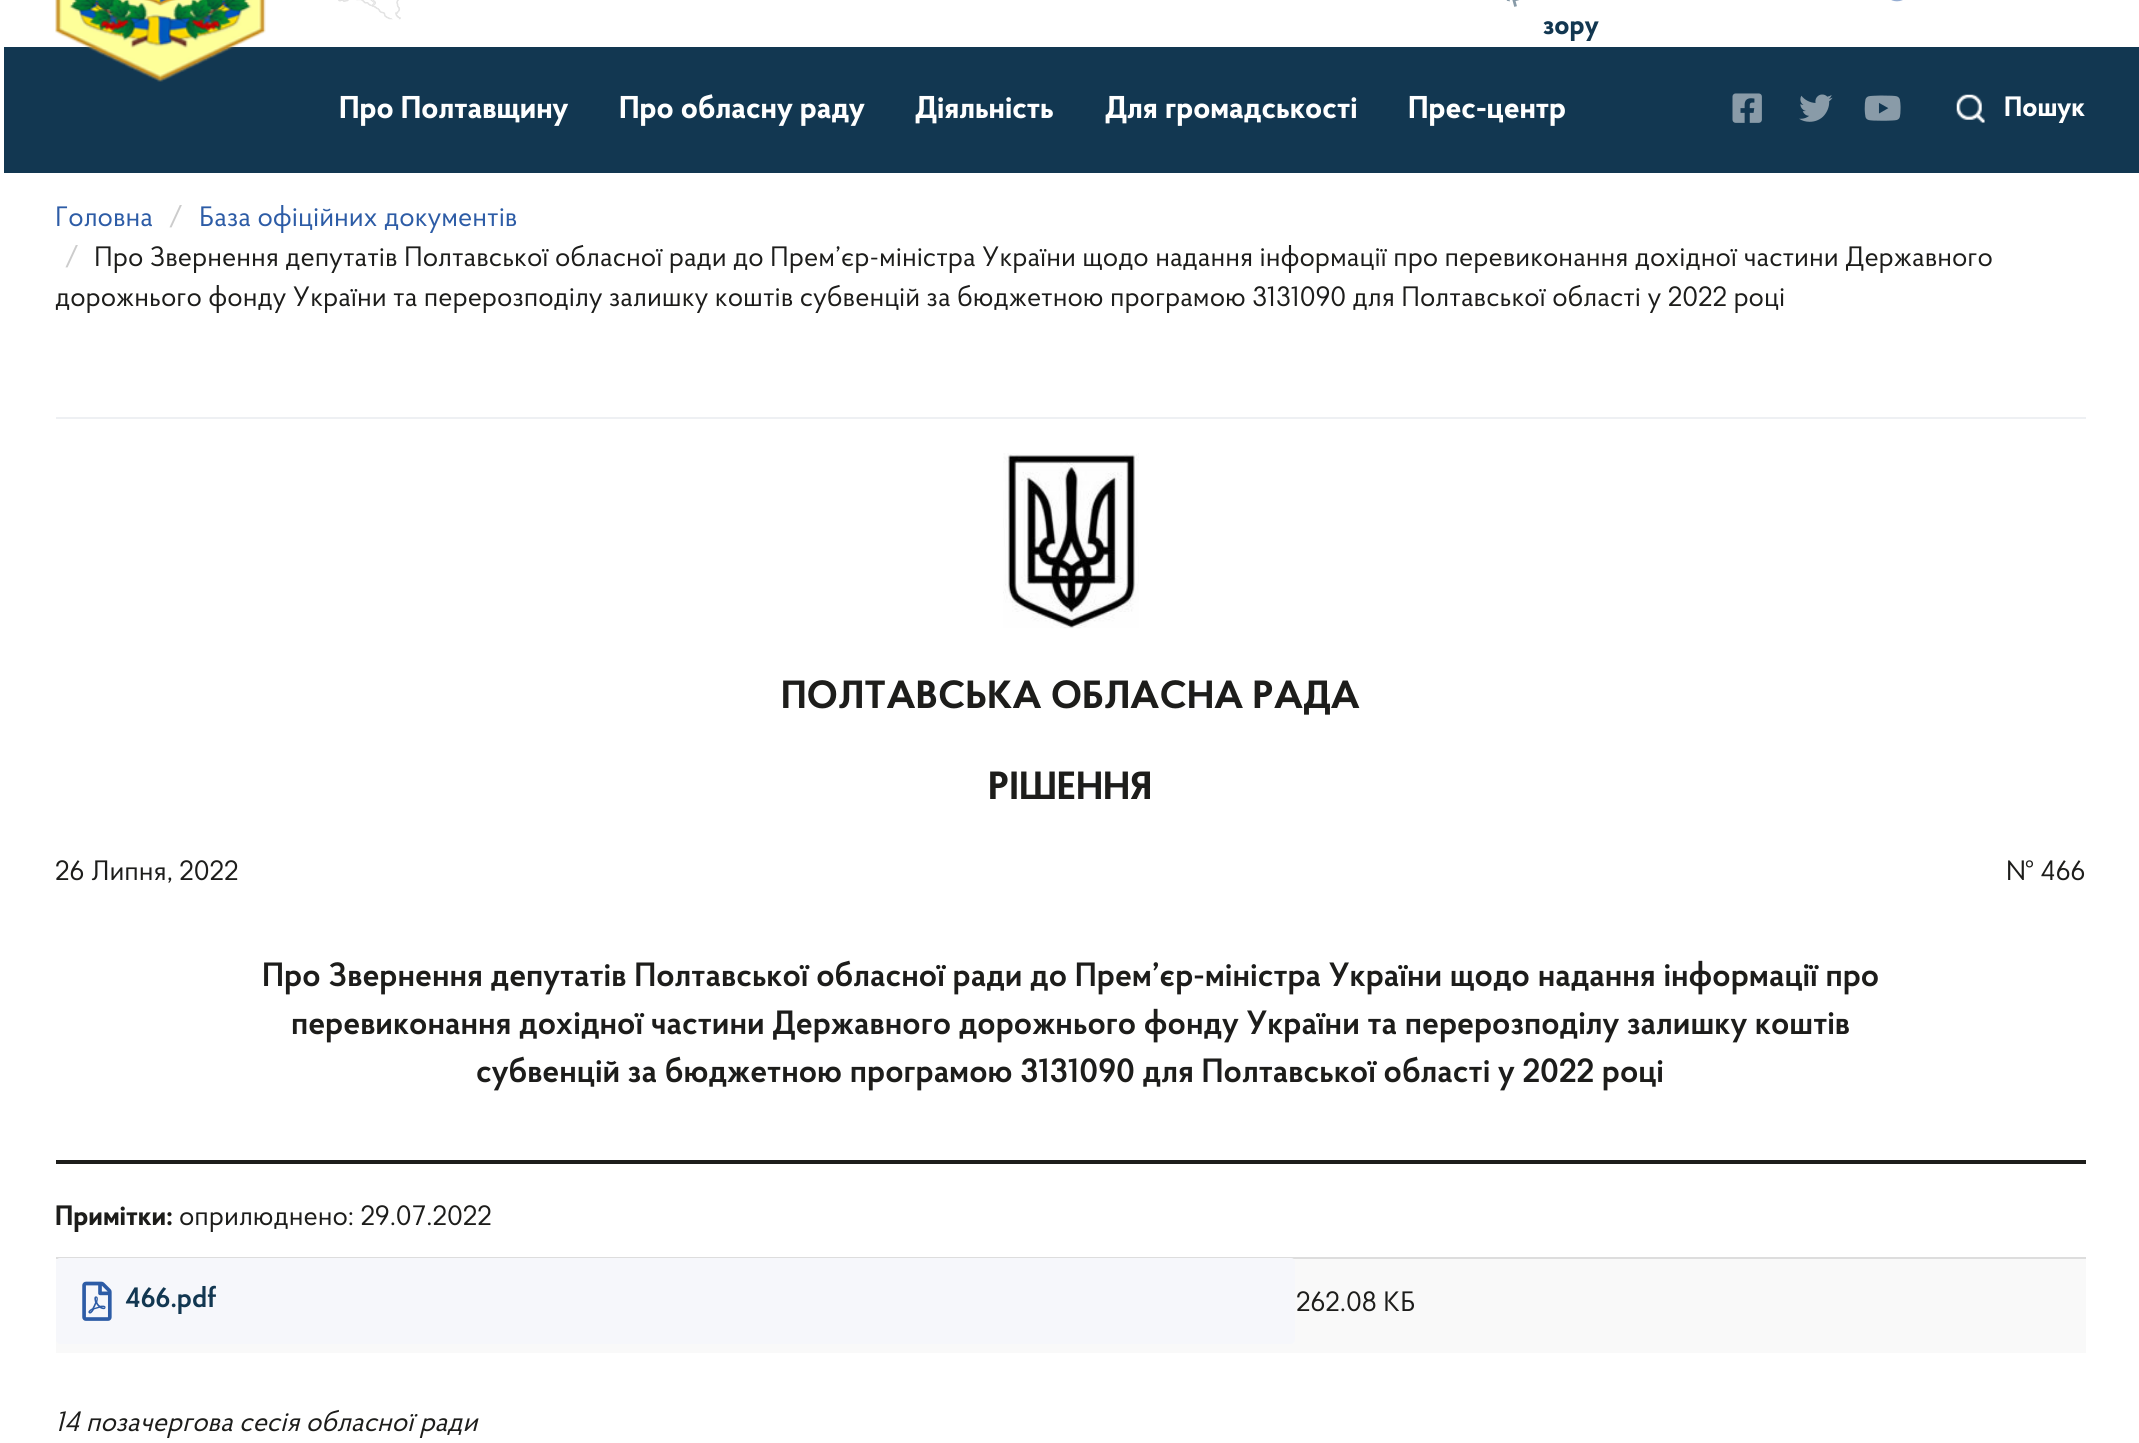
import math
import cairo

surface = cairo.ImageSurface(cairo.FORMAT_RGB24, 2139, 1443)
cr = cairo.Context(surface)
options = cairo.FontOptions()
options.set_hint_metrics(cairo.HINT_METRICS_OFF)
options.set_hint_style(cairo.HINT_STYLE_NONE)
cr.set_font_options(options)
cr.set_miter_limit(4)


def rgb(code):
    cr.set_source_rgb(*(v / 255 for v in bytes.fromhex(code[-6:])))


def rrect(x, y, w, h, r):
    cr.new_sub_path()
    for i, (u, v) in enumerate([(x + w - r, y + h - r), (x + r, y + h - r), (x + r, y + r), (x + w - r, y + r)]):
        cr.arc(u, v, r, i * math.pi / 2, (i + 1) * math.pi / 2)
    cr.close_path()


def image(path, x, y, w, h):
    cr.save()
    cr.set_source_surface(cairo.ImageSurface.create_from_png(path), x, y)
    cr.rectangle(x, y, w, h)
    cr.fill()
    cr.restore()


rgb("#ffffff")
cr.paint()
image("img/1.png", 338, 0, 63, 20)
rgb("#123751")
cr.rectangle(4, 47, 2135, 126)
cr.fill()
image("img/2.png", 55, 0, 211, 82)
image("img/3.png", 1891, 0, 12, 2)
image("img/4.png", 1506, 0, 13, 7)
image("img/5.png", 1732, 93, 30, 30)
image("img/6.png", 1799, 94, 34, 28)
image("img/7.png", 1864, 95, 37, 26)
image("img/8.png", 1956, 94, 29, 29)
rgb("#eef0f3")
cr.rectangle(56, 417, 2030, 2)
cr.fill()
image("img/9.png", 1003, 453, 136, 176)
for x, y, w, h, color in [
    (56, 1160, 2030, 4, "#1d1d1b"),
    (56, 1259, 2030, 94, "#f9f9f9"),
    (56, 1257, 2030, 2, "#dddddd"),
]:
    rgb(color)
    cr.rectangle(x, y, w, h)
    cr.fill()
rgb("#f6f7fb")
rrect(56, 1258, 1239, 86, 4)
cr.fill()
image("img/10.png", 82, 1281, 30, 40)
cr.select_font_face("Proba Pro", cairo.FONT_SLANT_NORMAL, cairo.FONT_WEIGHT_BOLD)
cr.set_font_size(28)
rgb("#123751")
cr.move_to(1543, 34)
cr.show_text("зору")
cr.set_font_size(31.5)
rgb("#ffffff")
for x, y, s in [
    (339, 118, "Про Полтавщину"),
    (619, 118, "Про обласну раду"),
    (915, 118, "Діяльність"),
    (1105, 118, "Для громадськості"),
    (1408, 118, "Прес-центр"),
]:
    cr.move_to(x, y)
    cr.show_text(s)
cr.set_font_size(28)
cr.move_to(2004, 116)
cr.show_text("Пошук")
cr.select_font_face("Proba Pro")
rgb("#2d5ca6")
cr.move_to(55, 226)
cr.show_text("Головна")
rgb("#cccccc")
cr.move_to(168, 226)
cr.show_text("/")
rgb("#2d5ca6")
cr.move_to(199, 226)
cr.show_text("База офіційних документів")
rgb("#cccccc")
cr.move_to(64, 266)
cr.show_text("/")
rgb("#1d1d1b")
cr.move_to(94, 266)
cr.show_text("Про Звернення депутатів Полтавської обласної ради до Прем’єр-міністра України щодо надання інформації про перевиконання дохідної частини Державного")
cr.move_to(55, 306)
cr.show_text("дорожнього фонду України та перерозподілу залишку коштів субвенцій за бюджетною програмою 3131090 для Полтавської області у 2022 році")
cr.select_font_face("Proba Pro", cairo.FONT_SLANT_NORMAL, cairo.FONT_WEIGHT_BOLD)
cr.set_font_size(39.25)
cr.move_to(781, 708)
cr.show_text("ПОЛТАВСЬКА ОБЛАСНА РАДА")
cr.move_to(988, 799)
cr.show_text("РІШЕННЯ")
cr.select_font_face("Proba Pro")
cr.set_font_size(28)
cr.move_to(55, 880)
cr.show_text("26 Липня, 2022")
cr.move_to(2006, 880)
cr.show_text("№ 466")
cr.select_font_face("Proba Pro SemiBold")
cr.set_font_size(33.6)
for x, y, s in [
    (262, 986, "Про Звернення депутатів Полтавської обласної ради до Прем’єр-міністра України щодо надання інформації про"),
    (291, 1034, "перевиконання дохідної частини Державного дорожнього фонду України та перерозподілу залишку коштів"),
    (476, 1082, "субвенцій за бюджетною програмою 3131090 для Полтавської області у 2022 році"),
]:
    cr.move_to(x, y)
    cr.show_text(s)
cr.select_font_face("Proba Pro", cairo.FONT_SLANT_NORMAL, cairo.FONT_WEIGHT_BOLD)
cr.set_font_size(28)
cr.move_to(55, 1225)
cr.show_text("Примітки:")
cr.select_font_face("Proba Pro")
cr.move_to(179, 1225)
cr.show_text("оприлюднено: 29.07.2022")
cr.select_font_face("Proba Pro SemiBold")
rgb("#123751")
cr.move_to(125, 1307)
cr.show_text("466.pdf")
cr.select_font_face("Proba Pro")
rgb("#1d1d1b")
cr.move_to(1296, 1311)
cr.show_text("262.08 КБ")
cr.select_font_face("Proba Pro", cairo.FONT_SLANT_ITALIC)
cr.move_to(55, 1431)
cr.show_text("14 позачергова сесія обласної ради")
surface.write_to_png("page.png")
